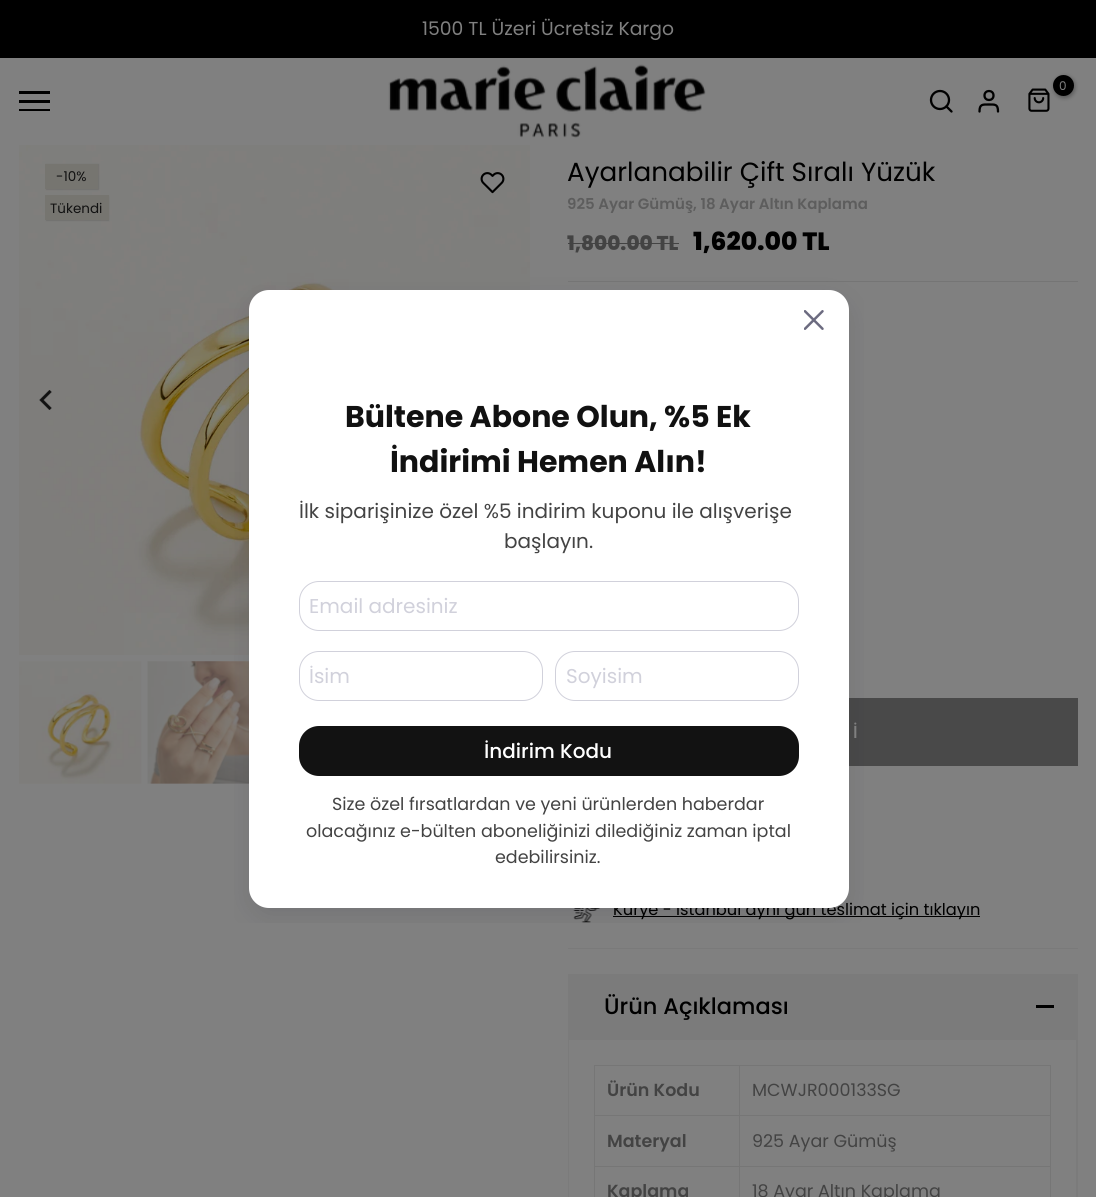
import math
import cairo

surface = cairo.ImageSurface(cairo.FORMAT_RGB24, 1096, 1197)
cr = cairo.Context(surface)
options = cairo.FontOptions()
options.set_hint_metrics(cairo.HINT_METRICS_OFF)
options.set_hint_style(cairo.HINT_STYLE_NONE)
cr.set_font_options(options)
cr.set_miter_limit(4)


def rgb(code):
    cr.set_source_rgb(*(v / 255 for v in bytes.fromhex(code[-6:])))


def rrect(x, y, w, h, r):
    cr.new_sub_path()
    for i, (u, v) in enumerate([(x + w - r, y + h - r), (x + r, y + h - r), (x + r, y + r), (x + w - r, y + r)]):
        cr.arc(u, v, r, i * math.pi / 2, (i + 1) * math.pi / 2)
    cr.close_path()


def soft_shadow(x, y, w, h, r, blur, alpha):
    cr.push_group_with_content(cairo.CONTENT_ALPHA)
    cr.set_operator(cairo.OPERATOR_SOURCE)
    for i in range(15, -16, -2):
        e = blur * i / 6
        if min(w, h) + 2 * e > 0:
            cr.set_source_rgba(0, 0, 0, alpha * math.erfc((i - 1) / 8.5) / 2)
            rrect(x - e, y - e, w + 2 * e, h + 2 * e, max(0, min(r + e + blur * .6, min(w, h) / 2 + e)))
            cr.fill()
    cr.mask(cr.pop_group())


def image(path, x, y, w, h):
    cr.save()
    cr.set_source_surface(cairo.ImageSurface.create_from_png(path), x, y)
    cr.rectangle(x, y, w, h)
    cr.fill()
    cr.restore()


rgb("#808080")
cr.paint()
rgb("#000000")
cr.rectangle(0, 0, 1096, 58)
cr.fill()
image("img/1.png", 388, 64, 318, 74)
image("img/2.png", 1028, 88, 22, 24)
rgb("#000000")
soft_shadow(1054, 76, 21, 22, 10.5, 2, 0.3)
rgb("#000000")
cr.arc(1063.5, 85.5, 10.5, 0, 2 * math.pi)
cr.fill()
cr.arc(940, 100, 9, 0, 2 * math.pi)
cr.set_line_width(2.3)
cr.stroke()
cr.new_path()
cr.move_to(951.5, 111.5)
cr.line_to(946.5, 106.5)
cr.move_to(998, 111.5)
cr.curve_to(998, 104, 995, 104.5, 989, 104.5)
cr.curve_to(982.5, 104.5, 979.5, 104, 979.5, 111.5)
cr.set_line_cap(cairo.LINE_CAP_ROUND)
cr.set_line_join(cairo.LINE_JOIN_ROUND)
cr.stroke()
cr.arc(989, 95.5, 4.5, 0, 2 * math.pi)
cr.set_line_cap(cairo.LINE_CAP_BUTT)
cr.set_line_join(cairo.LINE_JOIN_MITER)
cr.stroke()
for x, y, w, h, color in [
    (19, 91, 31, 3, "#000000"),
    (19, 100, 31, 3, "#000000"),
    (19, 109, 31, 2, "#000000"),
]:
    rgb(color)
    cr.rectangle(x, y, w, h)
    cr.fill()
image("img/3.png", 19, 145, 511, 510)
image("img/4.png", 39, 390, 13, 20)
rgb("#000000")
soft_shadow(46, 164, 53, 26, 0, 0.5, 0.1)
rgb("#767570")
cr.rectangle(45, 164, 53, 25)
cr.fill()
rgb("#000000")
soft_shadow(46, 196, 63, 25, 0, 0.5, 0.1)
rgb("#767570")
cr.rectangle(45, 195, 64, 25)
cr.fill()
image("img/5.png", 480, 172, 25, 22)
image("img/6.png", 19, 661, 123, 123)
image("img/7.png", 147, 661, 102, 123)
for x, y, w, h, color in [
    (568, 243, 111, 1, "#434343"),
    (568, 281, 510, 1, "#757575"),
    (849, 698, 229, 68, "#494949"),
]:
    rgb(color)
    cr.rectangle(x, y, w, h)
    cr.fill()
image("img/8.png", 573, 908, 27, 15)
for x, y, w, h, color in [
    (613, 916, 367, 1, "#000000"),
    (568, 948, 510, 1, "#7a7a7a"),
    (568, 974, 510, 66, "#7b7b7b"),
    (1036, 1005, 18, 3, "#000000"),
]:
    rgb(color)
    cr.rectangle(x, y, w, h)
    cr.fill()
rgb("#7b7b7b")
cr.new_path()
cr.move_to(1078, 1040)
cr.line_to(1078, 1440)
cr.line_to(1076, 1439)
cr.line_to(1076, 1040)
cr.close_path()
cr.fill()
cr.new_path()
cr.move_to(568, 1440)
cr.line_to(568, 1040)
cr.line_to(569, 1040)
cr.line_to(569, 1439)
cr.close_path()
cr.fill()
for x, y, w, h, color in [
    (594, 1065, 457, 1, "#767676"),
    (1050, 1065, 1, 132, "#767676"),
    (594, 1065, 1, 132, "#767676"),
    (594, 1115, 457, 1, "#767676"),
    (594, 1166, 457, 1, "#767676"),
    (739, 1065, 1, 132, "#767676"),
]:
    rgb(color)
    cr.rectangle(x, y, w, h)
    cr.fill()
cr.save()
cr.rectangle(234, 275, 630, 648)
cr.clip()
rgb("#121127")
soft_shadow(249, 300, 600, 618, 20, 12.5, 0.1)
cr.restore()
cr.select_font_face("Poppins")
cr.set_font_size(18.75)
rgb("#808080")
cr.move_to(422, 35)
cr.show_text("1500 TL Üzeri Ücretsiz Kargo")
cr.set_font_size(12)
cr.move_to(1059, 90)
cr.show_text("0")
cr.set_font_size(13.5)
rgb("#111111")
cr.move_to(56, 181)
cr.show_text("-10%")
cr.move_to(50, 213)
cr.show_text("Tükendi")
cr.set_font_size(26.25)
rgb("#000000")
cr.move_to(567, 181)
cr.show_text("Ayarlanabilir Çift Sıralı Yüzük")
cr.select_font_face("Poppins SemiBold")
cr.set_font_size(15)
rgb("#5d5d5d")
cr.move_to(567, 209)
cr.show_text("925 Ayar Gümüş, 18 Ayar Altın Kaplama")
cr.select_font_face("Poppins ExtraBold")
cr.set_font_size(20)
rgb("#434343")
cr.move_to(567, 250)
cr.show_text("1,800.00 TL")
cr.set_font_size(25)
rgb("#000000")
cr.move_to(693, 250)
cr.show_text("1,620.00 TL")
cr.select_font_face("Poppins Medium")
cr.set_font_size(17.5)
rgb("#808080")
cr.move_to(853, 738)
cr.show_text("İ")
cr.select_font_face("Poppins")
cr.set_font_size(16.25)
rgb("#000000")
cr.move_to(613, 915)
cr.show_text("Kurye - İstanbul aynı gün teslimat için tıklayın")
cr.select_font_face("Poppins Medium")
cr.set_font_size(22.5)
cr.move_to(604, 1014)
cr.show_text("Ürün Açıklaması")
cr.select_font_face("Poppins SemiBold")
cr.set_font_size(17.5)
rgb("#434343")
cr.move_to(607, 1096)
cr.show_text("Ürün Kodu")
cr.select_font_face("Poppins")
cr.move_to(752, 1096)
cr.show_text("MCWJR000133SG")
cr.select_font_face("Poppins SemiBold")
cr.move_to(607, 1147)
cr.show_text("Materyal")
cr.select_font_face("Poppins")
cr.move_to(752, 1147)
cr.show_text("925 Ayar Gümüş")
cr.select_font_face("Poppins SemiBold")
cr.move_to(607, 1197)
cr.show_text("Kaplama")
cr.select_font_face("Poppins")
cr.move_to(752, 1197)
cr.show_text("18 Ayar Altın Kaplama")
rgb("#ffffff")
rrect(249, 290, 600, 618, 20)
cr.fill()
image("img/9.png", 804, 310, 20, 20)
cr.select_font_face("Poppins", cairo.FONT_SLANT_NORMAL, cairo.FONT_WEIGHT_BOLD)
cr.set_font_size(30)
rgb("#111111")
cr.move_to(345, 427)
cr.show_text("Bültene Abone Olun, %5 Ek")
cr.move_to(390, 472)
cr.show_text("İndirimi Hemen Alın!")
cr.select_font_face("Poppins")
cr.set_font_size(20)
rgb("#434343")
cr.move_to(299, 518)
cr.show_text("İlk siparişinize özel %5 indirim kuponu ile alışverişe")
cr.move_to(504, 548)
cr.show_text("başlayın.")
rrect(299.5, 581.5, 499, 49, 19.5)
rgb("#d1d1db")
cr.set_line_width(1)
cr.stroke()
cr.move_to(309, 613)
cr.show_text("Email adresiniz")
rrect(299.5, 651.5, 243, 49, 19.5)
cr.stroke()
cr.move_to(309, 683)
cr.show_text("İsim")
rrect(555.5, 651.5, 243, 49, 19.5)
cr.stroke()
cr.move_to(566, 683)
cr.show_text("Soyisim")
rgb("#121212")
rrect(299, 726, 500, 50, 20)
cr.fill()
cr.select_font_face("Poppins Medium")
rgb("#ffffff")
cr.move_to(484, 758)
cr.show_text("İndirim Kodu")
cr.select_font_face("Poppins")
cr.set_font_size(17.5)
rgb("#434343")
for x, y, s in [
    (332, 810, "Size özel fırsatlardan ve yeni ürünlerden haberdar"),
    (306, 837, "olacağınız e-bülten aboneliğinizi dilediğiniz zaman iptal"),
    (495, 863, "edebilirsiniz."),
]:
    cr.move_to(x, y)
    cr.show_text(s)
surface.write_to_png("page.png")
